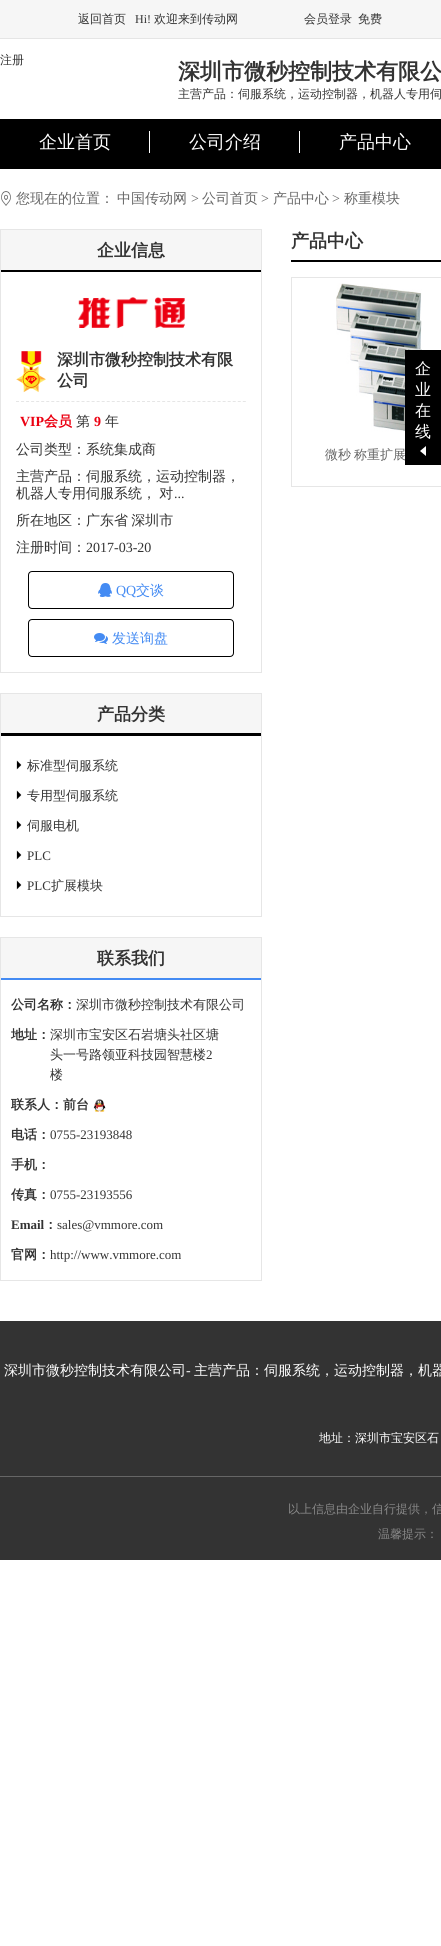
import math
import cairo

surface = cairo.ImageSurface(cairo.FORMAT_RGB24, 441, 1946)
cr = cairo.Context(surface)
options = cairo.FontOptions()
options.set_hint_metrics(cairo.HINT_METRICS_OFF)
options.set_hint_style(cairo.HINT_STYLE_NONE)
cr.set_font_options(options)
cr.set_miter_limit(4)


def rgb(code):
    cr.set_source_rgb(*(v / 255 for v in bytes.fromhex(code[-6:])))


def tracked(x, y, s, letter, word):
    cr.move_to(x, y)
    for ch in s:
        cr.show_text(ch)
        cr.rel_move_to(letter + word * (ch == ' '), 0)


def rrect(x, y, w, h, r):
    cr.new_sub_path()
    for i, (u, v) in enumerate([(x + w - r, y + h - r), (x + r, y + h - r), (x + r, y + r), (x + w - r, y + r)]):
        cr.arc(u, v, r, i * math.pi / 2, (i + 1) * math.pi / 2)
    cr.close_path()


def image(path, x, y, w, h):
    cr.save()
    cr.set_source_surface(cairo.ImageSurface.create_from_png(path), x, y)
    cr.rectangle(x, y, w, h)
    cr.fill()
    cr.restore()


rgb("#ffffff")
cr.paint()
for x, y, w, h, color in [
    (0, 0, 441, 38, "#f6f6f6"),
    (0, 38, 441, 1, "#e5e5e5"),
    (0, 119, 441, 50, "#000000"),
    (149, 131, 1, 22, "#ffffff"),
    (299, 131, 1, 22, "#ffffff"),
]:
    rgb(color)
    cr.rectangle(x, y, w, h)
    cr.fill()
image("img/1.png", 1, 191, 10, 15)
cr.rectangle(0.5, 229.5, 261, 443)
rgb("#e6e6e6")
cr.set_line_width(1)
cr.stroke()
rgb("#f6f6f6")
cr.rectangle(1, 230, 260, 40)
cr.fill()
rgb("#000000")
cr.rectangle(1, 270, 260, 2)
cr.fill()
image("img/2.png", 78, 297, 107, 32)
cr.new_path()
cr.move_to(16, 401.5)
cr.line_to(246, 401.5)
rgb("#e6e6e6")
cr.set_dash([3, 2.04])
cr.stroke()
image("img/3.png", 16, 351, 30, 42)
rrect(28.5, 571.5, 205, 37, 3.5)
rgb("#000000")
cr.set_dash([])
cr.stroke()
image("img/4.png", 98, 583, 14, 14)
rrect(28.5, 619.5, 205, 37, 3.5)
cr.stroke()
image("img/5.png", 94, 633, 14, 11)
cr.rectangle(0.5, 693.5, 261, 223)
rgb("#e6e6e6")
cr.stroke()
rgb("#f6f6f6")
cr.rectangle(1, 694, 260, 39)
cr.fill()
rgb("#000000")
cr.rectangle(1, 733, 260, 3)
cr.fill()
image("img/6.png", 16, 760, 6, 10)
image("img/6.png", 16, 790, 6, 10)
image("img/6.png", 16, 820, 6, 10)
image("img/6.png", 16, 850, 6, 10)
image("img/6.png", 16, 880, 6, 10)
cr.rectangle(0.5, 937.5, 261, 343)
rgb("#e6e6e6")
cr.stroke()
rgb("#f6f6f6")
cr.rectangle(1, 938, 260, 40)
cr.fill()
rgb("#448bf3")
cr.rectangle(1, 978, 260, 2)
cr.fill()
image("img/7.png", 93, 1099, 13, 13)
rgb("#000000")
cr.rectangle(291, 260, 150, 2)
cr.fill()
cr.rectangle(291.5, 277.5, 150, 209)
rgb("#e6e6e6")
cr.stroke()
image("img/8.png", 336, 283, 86, 150)
rgb("#333333")
cr.rectangle(0, 1321, 441, 239)
cr.fill()
rgb("#666666")
cr.rectangle(0, 1476, 441, 1)
cr.fill()
cr.select_font_face("WenQuanYi Zen Hei Medium")
cr.set_font_size(12)
rgb("#333333")
cr.move_to(78, 23)
cr.show_text("返回首页")
cr.select_font_face("Liberation Serif")
cr.move_to(135, 23)
cr.show_text("Hi!")
cr.select_font_face("WenQuanYi Zen Hei Medium")
for x, y, s in [
    (154, 23, "欢迎来到传动网"),
    (304, 23, "会员登录"),
    (358, 23, "免费"),
    (0, 64, "注册"),
]:
    cr.move_to(x, y)
    cr.show_text(s)
cr.select_font_face("WenQuanYi Zen Hei", cairo.FONT_SLANT_NORMAL, cairo.FONT_WEIGHT_BOLD)
cr.set_font_size(22)
cr.move_to(178, 79)
cr.show_text("深圳市微秒控制技术有限公")
cr.select_font_face("WenQuanYi Zen Hei Medium")
cr.set_font_size(12)
tracked(178, 98, "主营产品：伺服系统，运动控制器，机器人专用伺", 0, -1)
cr.set_font_size(18)
rgb("#ffffff")
for x, y, s in [
    (39, 148, "企业首页"),
    (189, 148, "公司介绍"),
    (339, 148, "产品中心"),
]:
    cr.move_to(x, y)
    cr.show_text(s)
cr.set_font_size(14)
rgb("#666666")
cr.move_to(16, 203)
cr.show_text("您现在的位置：")
cr.move_to(117, 203)
cr.show_text("中国传动网")
cr.select_font_face("Liberation Serif")
cr.move_to(191, 203)
cr.show_text(">")
cr.select_font_face("WenQuanYi Zen Hei Medium")
cr.move_to(202, 203)
cr.show_text("公司首页")
cr.select_font_face("Liberation Serif")
cr.move_to(261, 203)
cr.show_text(">")
cr.select_font_face("WenQuanYi Zen Hei Medium")
cr.move_to(273, 203)
cr.show_text("产品中心")
cr.select_font_face("Liberation Serif")
cr.move_to(332, 203)
cr.show_text(">")
cr.select_font_face("WenQuanYi Zen Hei Medium")
cr.move_to(344, 203)
cr.show_text("称重模块")
cr.select_font_face("WenQuanYi Zen Hei", cairo.FONT_SLANT_NORMAL, cairo.FONT_WEIGHT_BOLD)
cr.set_font_size(17)
rgb("#333333")
cr.move_to(97, 256)
cr.show_text("企业信息")
cr.set_font_size(16)
cr.move_to(57, 365)
cr.show_text("深圳市微秒控制技术有限")
cr.move_to(57, 386)
cr.show_text("公司")
cr.select_font_face("Liberation Serif", cairo.FONT_SLANT_NORMAL, cairo.FONT_WEIGHT_BOLD)
cr.set_font_size(14)
rgb("#eb0011")
cr.move_to(20, 426)
cr.show_text("VIP")
cr.select_font_face("WenQuanYi Zen Hei", cairo.FONT_SLANT_NORMAL, cairo.FONT_WEIGHT_BOLD)
cr.move_to(44, 426)
cr.show_text("会员")
cr.select_font_face("WenQuanYi Zen Hei Medium")
rgb("#333333")
cr.move_to(76, 426)
cr.show_text("第")
cr.select_font_face("Liberation Serif", cairo.FONT_SLANT_NORMAL, cairo.FONT_WEIGHT_BOLD)
rgb("#eb0011")
cr.move_to(94, 426)
cr.show_text("9")
cr.select_font_face("WenQuanYi Zen Hei Medium")
rgb("#333333")
for x, y, s in [
    (105, 426, "年"),
    (16, 454, "公司类型：系统集成商"),
    (16, 481, "主营产品：伺服系统，运动控制器，"),
]:
    cr.move_to(x, y)
    cr.show_text(s)
tracked(16, 498, "机器人专用伺服系统， 对", 0, -1)
cr.select_font_face("Liberation Serif")
cr.move_to(174, 498)
cr.show_text("...")
cr.select_font_face("WenQuanYi Zen Hei Medium")
tracked(16, 525, "所在地区：广东省 深圳市", 0, -1)
cr.move_to(16, 552)
cr.show_text("注册时间：")
cr.select_font_face("Liberation Serif")
cr.move_to(86, 552)
cr.show_text("2017-03-20")
rgb("#448bf3")
cr.move_to(116, 595)
cr.show_text("QQ")
cr.select_font_face("WenQuanYi Zen Hei Medium")
cr.move_to(136, 595)
cr.show_text("交谈")
cr.move_to(112, 643)
cr.show_text("发送询盘")
cr.select_font_face("WenQuanYi Zen Hei", cairo.FONT_SLANT_NORMAL, cairo.FONT_WEIGHT_BOLD)
cr.set_font_size(17)
rgb("#333333")
cr.move_to(97, 720)
cr.show_text("产品分类")
cr.select_font_face("WenQuanYi Zen Hei Medium")
cr.set_font_size(13)
for x, y, s in [
    (27, 770, "标准型伺服系统"),
    (27, 800, "专用型伺服系统"),
    (27, 830, "伺服电机"),
]:
    cr.move_to(x, y)
    cr.show_text(s)
cr.select_font_face("Liberation Serif")
cr.move_to(27, 860)
cr.show_text("PLC")
cr.move_to(27, 890)
cr.show_text("PLC")
cr.select_font_face("WenQuanYi Zen Hei Medium")
cr.move_to(51, 890)
cr.show_text("扩展模块")
cr.select_font_face("WenQuanYi Zen Hei", cairo.FONT_SLANT_NORMAL, cairo.FONT_WEIGHT_BOLD)
cr.set_font_size(17)
cr.move_to(97, 964)
cr.show_text("联系我们")
cr.set_font_size(13)
cr.move_to(11, 1009)
cr.show_text("公司名称：")
cr.select_font_face("WenQuanYi Zen Hei Medium")
cr.move_to(76, 1009)
cr.show_text("深圳市微秒控制技术有限公司")
cr.select_font_face("WenQuanYi Zen Hei", cairo.FONT_SLANT_NORMAL, cairo.FONT_WEIGHT_BOLD)
cr.move_to(11, 1039)
cr.show_text("地址：")
cr.select_font_face("WenQuanYi Zen Hei Medium")
cr.move_to(50, 1039)
cr.show_text("深圳市宝安区石岩塘头社区塘")
cr.move_to(50, 1059)
cr.show_text("头一号路领亚科技园智慧楼")
cr.select_font_face("Liberation Serif")
cr.move_to(206, 1059)
cr.show_text("2")
cr.select_font_face("WenQuanYi Zen Hei Medium")
cr.move_to(50, 1079)
cr.show_text("楼")
cr.select_font_face("WenQuanYi Zen Hei", cairo.FONT_SLANT_NORMAL, cairo.FONT_WEIGHT_BOLD)
cr.move_to(11, 1109)
cr.show_text("联系人：前台")
cr.move_to(11, 1139)
cr.show_text("电话：")
cr.select_font_face("Liberation Serif")
cr.move_to(50, 1139)
cr.show_text("0755-23193848")
cr.select_font_face("WenQuanYi Zen Hei", cairo.FONT_SLANT_NORMAL, cairo.FONT_WEIGHT_BOLD)
cr.move_to(11, 1169)
cr.show_text("手机：")
cr.move_to(11, 1199)
cr.show_text("传真：")
cr.select_font_face("Liberation Serif")
cr.move_to(50, 1199)
cr.show_text("0755-23193556")
cr.select_font_face("Liberation Serif", cairo.FONT_SLANT_NORMAL, cairo.FONT_WEIGHT_BOLD)
cr.move_to(11, 1229)
cr.show_text("Email")
cr.select_font_face("WenQuanYi Zen Hei", cairo.FONT_SLANT_NORMAL, cairo.FONT_WEIGHT_BOLD)
cr.move_to(44, 1229)
cr.show_text("：")
cr.select_font_face("Liberation Serif")
cr.move_to(57, 1229)
cr.show_text("sales@vmmore.com")
cr.select_font_face("WenQuanYi Zen Hei", cairo.FONT_SLANT_NORMAL, cairo.FONT_WEIGHT_BOLD)
cr.move_to(11, 1259)
cr.show_text("官网：")
cr.select_font_face("Liberation Serif")
cr.move_to(50, 1259)
cr.show_text("http://www.vmmore.com")
cr.select_font_face("WenQuanYi Zen Hei", cairo.FONT_SLANT_NORMAL, cairo.FONT_WEIGHT_BOLD)
cr.set_font_size(18)
cr.move_to(291, 247)
cr.show_text("产品中心")
cr.select_font_face("WenQuanYi Zen Hei Medium")
cr.set_font_size(13)
rgb("#666666")
tracked(325, 459, "微秒 称重扩展", 0, -1)
rgb("#000000")
cr.rectangle(405, 350, 36, 115)
cr.fill()
cr.set_font_size(16)
rgb("#ffffff")
for x, y, s in [
    (415, 374, "企"),
    (415, 395, "业"),
    (415, 416, "在"),
    (415, 437, "线"),
]:
    cr.move_to(x, y)
    cr.show_text(s)
image("img/9.png", 420, 446, 6, 10)
cr.set_font_size(14)
cr.move_to(4, 1375)
cr.show_text("深圳市微秒控制技术有限公司")
cr.select_font_face("Liberation Serif")
cr.move_to(186, 1375)
cr.show_text("-")
cr.select_font_face("WenQuanYi Zen Hei Medium")
cr.move_to(194, 1375)
cr.show_text("主营产品：伺服系统，运动控制器，机器")
cr.set_font_size(12)
cr.move_to(319, 1442)
cr.show_text("地址：深圳市宝安区石")
rgb("#888888")
cr.move_to(288, 1513)
cr.show_text("以上信息由企业自行提供，信")
cr.move_to(378, 1538)
cr.show_text("温馨提示：")
surface.write_to_png("page.png")
